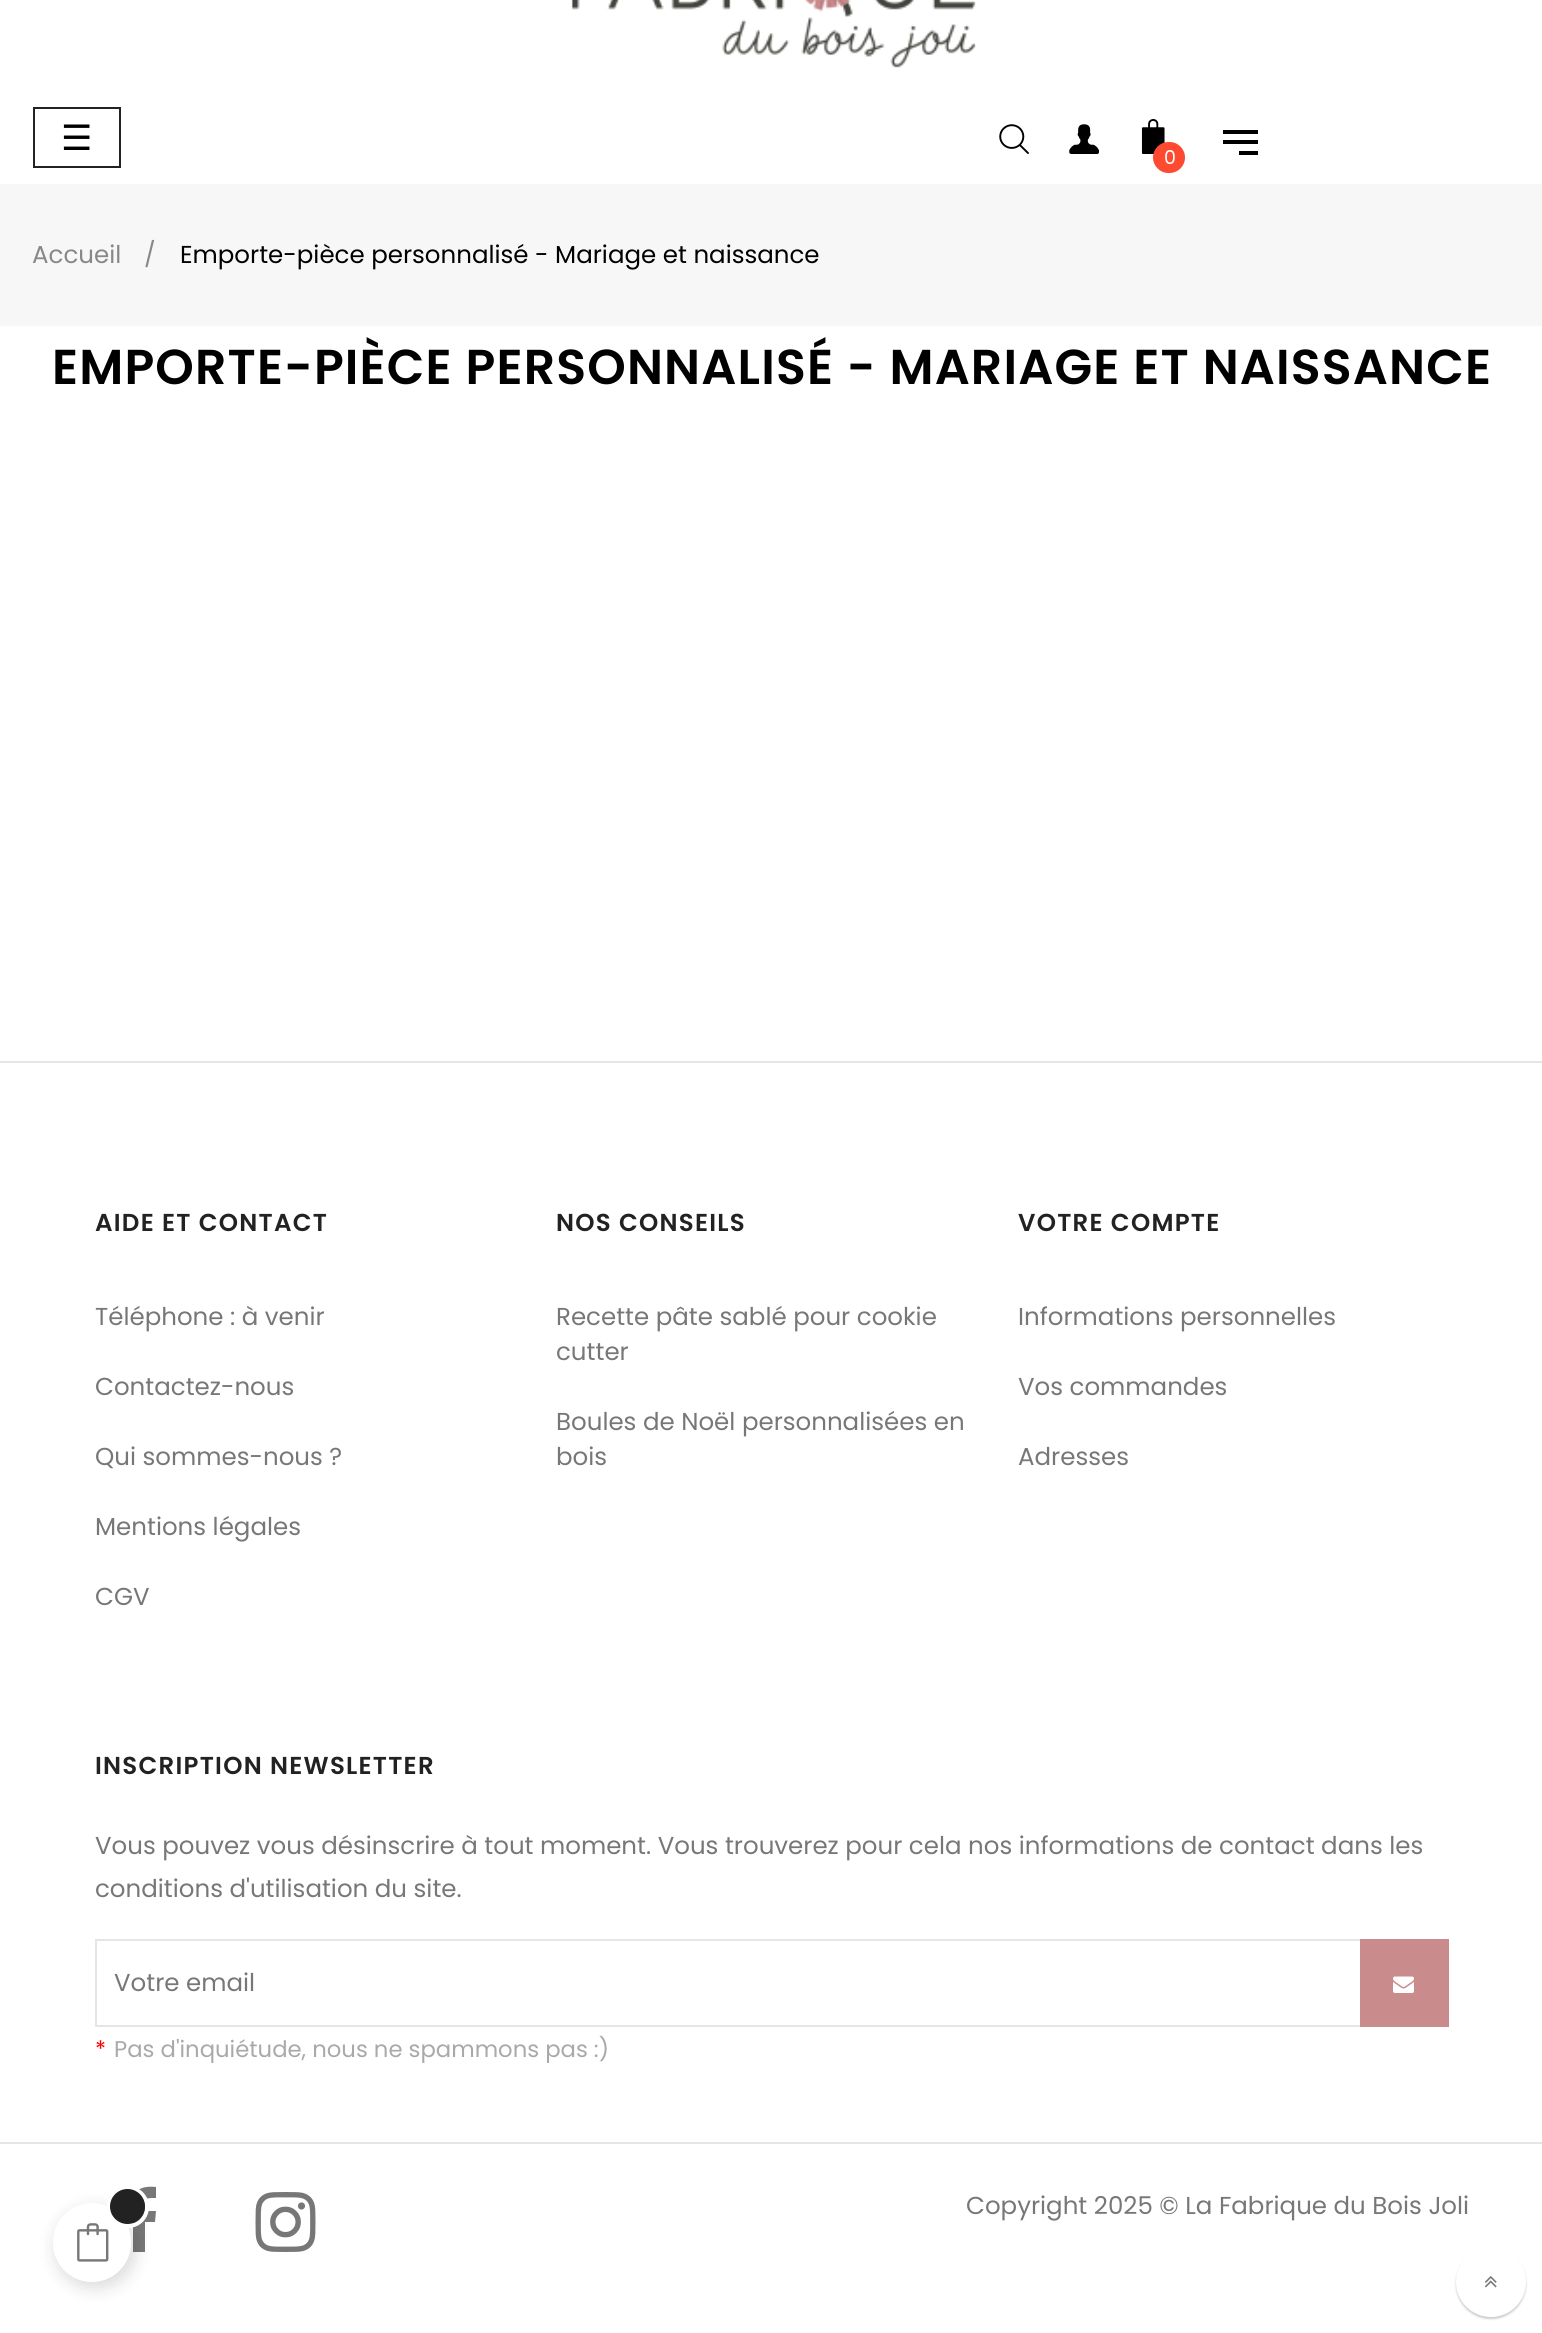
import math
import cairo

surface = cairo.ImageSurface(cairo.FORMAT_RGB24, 1542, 2333)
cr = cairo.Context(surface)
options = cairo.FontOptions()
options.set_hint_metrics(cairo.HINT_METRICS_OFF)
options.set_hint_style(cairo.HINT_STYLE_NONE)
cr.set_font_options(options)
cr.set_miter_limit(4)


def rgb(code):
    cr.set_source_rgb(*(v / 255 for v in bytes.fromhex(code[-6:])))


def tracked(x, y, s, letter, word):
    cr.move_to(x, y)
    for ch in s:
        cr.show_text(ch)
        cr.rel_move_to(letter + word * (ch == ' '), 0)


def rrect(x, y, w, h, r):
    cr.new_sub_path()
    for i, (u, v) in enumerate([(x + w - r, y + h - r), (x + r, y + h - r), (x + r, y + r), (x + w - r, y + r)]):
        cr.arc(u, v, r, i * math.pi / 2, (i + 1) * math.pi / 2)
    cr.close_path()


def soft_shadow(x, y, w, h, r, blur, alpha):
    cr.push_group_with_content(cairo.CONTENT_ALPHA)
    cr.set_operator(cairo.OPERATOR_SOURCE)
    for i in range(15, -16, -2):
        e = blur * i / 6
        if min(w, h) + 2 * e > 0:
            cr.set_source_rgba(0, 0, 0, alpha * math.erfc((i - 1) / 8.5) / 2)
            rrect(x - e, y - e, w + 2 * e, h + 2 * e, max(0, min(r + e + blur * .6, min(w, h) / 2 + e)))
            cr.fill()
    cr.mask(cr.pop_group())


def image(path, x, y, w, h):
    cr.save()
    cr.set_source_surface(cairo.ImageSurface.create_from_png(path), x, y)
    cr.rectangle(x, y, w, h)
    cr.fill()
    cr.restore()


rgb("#ffffff")
cr.paint()
image("img/1.png", 571, 0, 405, 68)
cr.rectangle(34, 108, 86, 59)
rgb("#222222")
cr.stroke()
image("img/2.png", 999, 124, 30, 30)
image("img/3.png", 1069, 124, 30, 30)
for x, y, w, h, color in [
    (1223, 130, 35, 4, "#000000"),
    (1223, 140, 35, 4, "#000000"),
    (1239, 151, 19, 4, "#000000"),
]:
    rgb(color)
    cr.rectangle(x, y, w, h)
    cr.fill()
image("img/4.png", 1141, 119, 24, 35)
rgb("#ff4a32")
rrect(1153, 142, 32, 31, 15.5)
cr.fill()
for x, y, w, h, color in [
    (0, 184, 1542, 142, "#f7f7f7"),
    (0, 1061, 1542, 2, "#e5e5e5"),
    (95, 1939, 1265, 2, "#e5e5e5"),
    (95, 2025, 1265, 2, "#e5e5e5"),
    (95, 1939, 2, 88, "#e5e5e5"),
    (1360, 1939, 89, 88, "#c98b8b"),
]:
    rgb(color)
    cr.rectangle(x, y, w, h)
    cr.fill()
image("img/5.png", 1393, 1976, 21, 17)
rgb("#e5e5e5")
cr.rectangle(0, 2142, 1542, 2)
cr.fill()
rgb("#777777")
cr.new_path()
cr.move_to(156, 2187)
cr.line_to(156, 2198)
cr.curve_to(143, 2198, 145, 2198, 145, 2211)
cr.line_to(156, 2211)
cr.line_to(155, 2222)
cr.line_to(145, 2222)
cr.line_to(145, 2252)
cr.line_to(133, 2252)
cr.line_to(133, 2222)
cr.line_to(123, 2222)
cr.line_to(123, 2211)
cr.line_to(133, 2211)
cr.line_to(133, 2199)
cr.curve_to(135, 2187, 147, 2186, 156, 2187)
cr.close_path()
cr.fill()
image("img/6.png", 255, 2192, 61, 60)
rgb("#000000")
soft_shadow(1456, 2249, 70, 70, 35, 1, 0.2)
rgb("#ffffff")
cr.arc(1491, 2282, 35, 0, 2 * math.pi)
cr.fill()
image("img/7.png", 1485, 2276, 12, 12)
rgb("#000000")
soft_shadow(56, 2209, 79, 78, 39, 9, 0.15)
rgb("#ffffff")
rrect(53, 2203, 78, 79, 39)
cr.fill()
image("img/8.png", 77, 2223, 32, 39)
cr.arc(128, 2207, 19, 0, 2 * math.pi)
cr.set_line_width(4)
cr.stroke()
rgb("#222222")
cr.arc(127.5, 2206.5, 17.5, 0, 2 * math.pi)
cr.fill()
cr.select_font_face("DejaVu Sans")
cr.set_font_size(35)
rgb("#000000")
cr.move_to(61, 150)
cr.show_text("☰")
cr.select_font_face("Poppins")
cr.set_font_size(19)
rgb("#ffffff")
cr.move_to(1164, 164)
cr.show_text("0")
cr.set_font_size(24.5)
rgb("#888888")
cr.move_to(32, 263)
cr.show_text("Accueil")
cr.move_to(144, 263)
cr.show_text("/")
rgb("#000000")
cr.move_to(180, 263)
cr.show_text("Emporte-pièce personnalisé - Mariage et naissance")
cr.select_font_face("Poppins SemiBold")
cr.set_font_size(49)
tracked(52, 384, "EMPORTE-PIÈCE PERSONNALISÉ - MARIAGE ET NAISSANCE", 1.15, 0)
cr.set_font_size(24.5)
rgb("#222222")
tracked(95, 1231, "AIDE ET CONTACT", 1.25, 0)
cr.select_font_face("Poppins")
rgb("#777777")
for x, y, s in [
    (95, 1325, "Téléphone : à venir"),
    (95, 1395, "Contactez-nous"),
    (95, 1465, "Qui sommes-nous ?"),
    (95, 1535, "Mentions légales"),
    (95, 1605, "CGV"),
]:
    cr.move_to(x, y)
    cr.show_text(s)
cr.select_font_face("Poppins SemiBold")
rgb("#222222")
tracked(556, 1231, "NOS CONSEILS", 1.25, 0)
cr.select_font_face("Poppins")
rgb("#777777")
for x, y, s in [
    (556, 1325, "Recette pâte sablé pour cookie"),
    (556, 1360, "cutter"),
    (556, 1430, "Boules de Noël personnalisées en"),
    (556, 1465, "bois"),
]:
    cr.move_to(x, y)
    cr.show_text(s)
cr.select_font_face("Poppins SemiBold")
rgb("#222222")
tracked(1018, 1231, "VOTRE COMPTE", 1.25, 0)
cr.select_font_face("Poppins")
rgb("#777777")
for x, y, s in [
    (1018, 1325, "Informations personnelles"),
    (1018, 1395, "Vos commandes"),
    (1018, 1465, "Adresses"),
]:
    cr.move_to(x, y)
    cr.show_text(s)
cr.select_font_face("Poppins SemiBold")
rgb("#222222")
tracked(95, 1774, "INSCRIPTION NEWSLETTER", 1.25, 0)
cr.select_font_face("Poppins")
rgb("#777777")
for x, y, s in [
    (95, 1854, "Vous pouvez vous désinscrire à tout moment. Vous trouverez pour cela nos informations de contact dans les"),
    (95, 1897, "conditions d'utilisation du site."),
    (114, 1991, "Votre email"),
]:
    cr.move_to(x, y)
    cr.show_text(s)
cr.set_font_size(22.75)
rgb("#ff0000")
cr.move_to(95, 2057)
cr.show_text("*")
rgb("#a9a9a9")
cr.move_to(114, 2057)
cr.show_text("Pas d'inquiétude, nous ne spammons pas :)")
cr.set_font_size(24.5)
rgb("#777777")
cr.move_to(966, 2214)
cr.show_text("Copyright 2025 © La Fabrique du Bois Joli")
surface.write_to_png("page.png")
